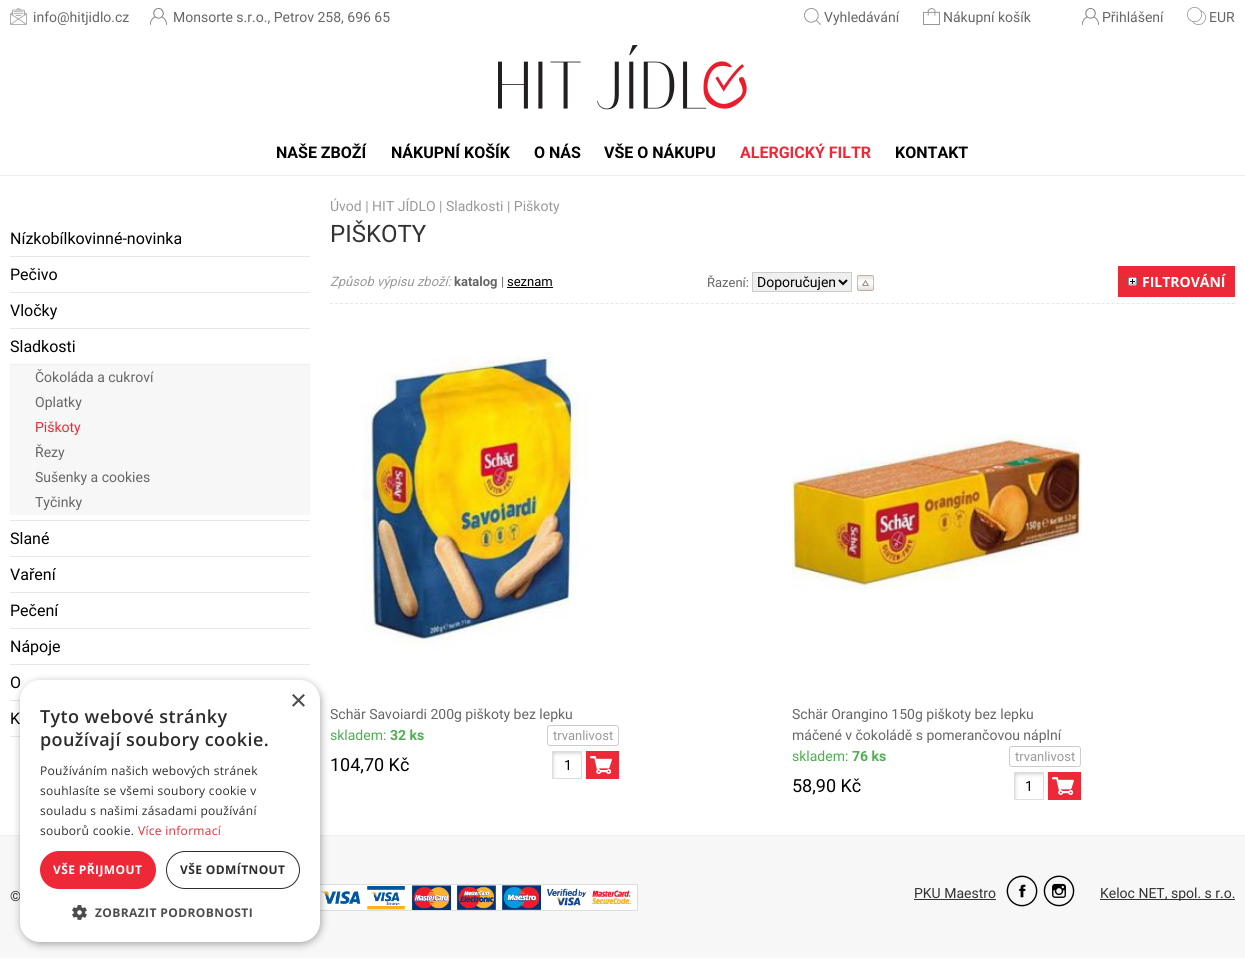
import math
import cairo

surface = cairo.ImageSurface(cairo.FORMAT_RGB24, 1245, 962)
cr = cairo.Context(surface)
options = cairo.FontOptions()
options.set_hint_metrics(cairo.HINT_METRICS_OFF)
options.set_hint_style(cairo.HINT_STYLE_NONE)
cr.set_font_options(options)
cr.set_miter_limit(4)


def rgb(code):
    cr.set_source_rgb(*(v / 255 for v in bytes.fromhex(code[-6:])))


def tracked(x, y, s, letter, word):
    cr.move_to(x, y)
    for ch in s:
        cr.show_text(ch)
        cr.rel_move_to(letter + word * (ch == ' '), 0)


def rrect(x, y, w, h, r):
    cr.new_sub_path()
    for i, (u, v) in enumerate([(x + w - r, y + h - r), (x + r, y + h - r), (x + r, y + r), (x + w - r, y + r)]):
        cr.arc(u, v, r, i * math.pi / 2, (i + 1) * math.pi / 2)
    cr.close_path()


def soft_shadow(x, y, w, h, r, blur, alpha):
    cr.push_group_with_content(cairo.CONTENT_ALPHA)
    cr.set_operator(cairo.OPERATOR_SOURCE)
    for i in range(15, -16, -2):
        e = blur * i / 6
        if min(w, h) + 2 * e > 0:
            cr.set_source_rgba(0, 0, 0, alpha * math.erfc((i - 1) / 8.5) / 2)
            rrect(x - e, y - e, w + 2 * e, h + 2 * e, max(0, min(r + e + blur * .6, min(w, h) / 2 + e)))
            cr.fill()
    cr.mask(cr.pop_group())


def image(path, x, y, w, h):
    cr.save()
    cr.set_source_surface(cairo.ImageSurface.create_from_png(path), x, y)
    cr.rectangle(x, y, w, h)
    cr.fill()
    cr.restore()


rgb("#ffffff")
cr.paint()
image("img/1.png", 10, 8, 17, 17)
image("img/2.png", 150, 8, 17, 17)
image("img/3.png", 804, 8, 17, 17)
image("img/4.png", 923, 8, 17, 17)
image("img/2.png", 1082, 8, 17, 17)
image("img/5.png", 1187, 7, 19, 18)
rgb("#eeeeee")
cr.rectangle(0, 175, 1245, 1)
cr.fill()
image("img/6.png", 498, 45, 249, 65)
for x, y, w, h, color in [
    (10, 256, 300, 1, "#e7e7e7"),
    (10, 292, 300, 1, "#e7e7e7"),
    (10, 328, 300, 1, "#e7e7e7"),
    (10, 520, 300, 1, "#e7e7e7"),
    (10, 365, 300, 150, "#f7f7f7"),
    (10, 364, 300, 1, "#eeeeee"),
    (10, 556, 300, 1, "#e7e7e7"),
    (10, 592, 300, 1, "#e7e7e7"),
    (10, 628, 300, 1, "#e7e7e7"),
    (10, 664, 300, 1, "#e7e7e7"),
    (10, 700, 10, 1, "#e7e7e7"),
    (10, 736, 10, 1, "#e7e7e7"),
    (507, 287, 46, 1, "#000000"),
]:
    rgb(color)
    cr.rectangle(x, y, w, h)
    cr.fill()
rgb("#efefef")
cr.rectangle(752.5, 272.5, 99, 19)
cr.fill_preserve()
rgb("#cccccc")
cr.set_line_width(1)
cr.stroke()
cr.new_path()
cr.move_to(839, 280)
cr.line_to(843, 284)
cr.line_to(847, 280)
rgb("#000000")
cr.set_line_width(2)
cr.stroke()
image("img/7.png", 857, 275, 17, 16)
rgb("#ed2837")
cr.rectangle(1118, 266, 117, 31)
cr.fill()
image("img/8.png", 1128, 277, 9, 9)
cr.new_path()
cr.move_to(330, 303.5)
cr.line_to(1235, 303.5)
rgb("#e7e7e7")
cr.set_line_width(1)
cr.set_dash([3, 2.01])
cr.stroke()
image("img/9.png", 361, 354, 228, 297)
rrect(547.5, 725.5, 71, 20, 2.5)
rgb("#cccccc")
cr.set_dash([])
cr.stroke()
image("img/10.png", 553, 752, 28, 26)
cr.rectangle(552.5, 751.5, 29, 27)
rgb("#dddddd")
cr.stroke()
image("img/11.png", 586, 751, 33, 28)
image("img/12.png", 792, 434, 289, 156)
rrect(1009.5, 746.5, 71, 20, 2.5)
rgb("#cccccc")
cr.stroke()
image("img/10.png", 1015, 773, 28, 26)
cr.rectangle(1014.5, 772.5, 29, 27)
rgb("#dddddd")
cr.stroke()
image("img/11.png", 1048, 772, 33, 28)
rgb("#f7f7f7")
cr.rectangle(0, 836, 1245, 122)
cr.fill()
rgb("#eeeeee")
cr.rectangle(0, 835, 1245, 1)
cr.fill()
cr.rectangle(238.5, 884.5, 399, 26)
rgb("#dddddd")
cr.stroke()
image("img/14.png", 320, 885, 317, 25)
rgb("#000000")
soft_shadow(21, 682, 300, 262, 20, 4, 0.35)
rgb("#333333")
cr.rectangle(914, 899, 82, 1)
cr.fill()
image("img/15.png", 1006, 875, 32, 32)
image("img/16.png", 1043, 875, 32, 32)
cr.rectangle(1100, 899, 135, 1)
cr.fill()
cr.select_font_face("Roboto")
cr.set_font_size(14)
rgb("#666666")
for x, y, s in [
    (33, 22, "info@hitjidlo.cz"),
    (173, 22, "Monsorte s.r.o., Petrov 258, 696 65"),
    (824, 22, "Vyhledávání"),
    (943, 22, "Nákupní košík"),
    (1102, 22, "Přihlášení"),
    (1209, 22, "EUR"),
]:
    cr.move_to(x, y)
    cr.show_text(s)
cr.select_font_face("Roboto", cairo.FONT_SLANT_NORMAL, cairo.FONT_WEIGHT_BOLD)
cr.set_font_size(16)
rgb("#000000")
for x, y, s in [
    (276, 158, "NAŠE ZBOŽÍ"),
    (391, 158, "NÁKUPNÍ KOŠÍK"),
    (534, 158, "O NÁS"),
    (604, 158, "VŠE O NÁKUPU"),
]:
    cr.move_to(x, y)
    cr.show_text(s)
rgb("#ed2837")
cr.move_to(740, 158)
cr.show_text("ALERGICKÝ FILTR")
rgb("#000000")
cr.move_to(895, 158)
cr.show_text("KONTAKT")
cr.select_font_face("Roboto")
for x, y, s in [
    (10, 244, "Nízkobílkovinné-novinka"),
    (10, 280, "Pečivo"),
    (10, 316, "Vločky"),
    (10, 352, "Sladkosti"),
]:
    cr.move_to(x, y)
    cr.show_text(s)
cr.set_font_size(14)
rgb("#666666")
cr.move_to(35, 382)
cr.show_text("Čokoláda a cukroví")
cr.move_to(35, 407)
cr.show_text("Oplatky")
rgb("#ed2837")
cr.move_to(35, 432)
cr.show_text("Piškoty")
rgb("#666666")
for x, y, s in [
    (35, 457, "Řezy"),
    (35, 482, "Sušenky a cookies"),
    (35, 507, "Tyčinky"),
]:
    cr.move_to(x, y)
    cr.show_text(s)
cr.set_font_size(16)
rgb("#000000")
for x, y, s in [
    (10, 544, "Slané"),
    (10, 580, "Vaření"),
    (10, 616, "Pečení"),
    (10, 652, "Nápoje"),
    (10, 688, "O"),
    (10, 724, "K"),
]:
    cr.move_to(x, y)
    cr.show_text(s)
cr.set_font_size(14)
rgb("#999999")
cr.move_to(330, 211)
cr.show_text("Úvod | HIT JÍDLO | Sladkosti | Piškoty")
cr.set_font_size(24)
rgb("#333333")
cr.move_to(330, 242)
cr.show_text("PIŠKOTY")
cr.select_font_face("Roboto", cairo.FONT_SLANT_ITALIC)
cr.set_font_size(13)
rgb("#999999")
cr.move_to(330, 286)
cr.show_text("Způsob výpisu zboží:")
cr.select_font_face("Roboto", cairo.FONT_SLANT_NORMAL, cairo.FONT_WEIGHT_BOLD)
rgb("#666666")
cr.move_to(454, 286)
cr.show_text("katalog")
cr.select_font_face("Roboto")
cr.move_to(501, 286)
cr.show_text("|")
rgb("#000000")
cr.move_to(507, 286)
cr.show_text("seznam")
rgb("#666666")
cr.move_to(707, 287)
cr.show_text("Řazení:")
cr.save()
cr.rectangle(757, 273, 78, 18)
cr.clip()
cr.set_font_size(14)
rgb("#000000")
cr.move_to(757, 287)
cr.show_text("Doporučujem")
cr.restore()
cr.select_font_face("Open Sans", cairo.FONT_SLANT_NORMAL, cairo.FONT_WEIGHT_BOLD)
cr.set_font_size(14)
rgb("#ffffff")
cr.move_to(1142, 287)
cr.show_text("FILTROVÁNÍ")
cr.select_font_face("Roboto")
rgb("#666666")
cr.move_to(330, 719)
cr.show_text("Schär Savoiardi 200g piškoty bez lepku")
rgb("#4caf50")
cr.move_to(330, 740)
cr.show_text("skladem:")
cr.select_font_face("Roboto", cairo.FONT_SLANT_NORMAL, cairo.FONT_WEIGHT_BOLD)
cr.move_to(390, 740)
cr.show_text("32 ks")
cr.select_font_face("Roboto")
cr.set_font_size(13)
rgb("#999999")
cr.move_to(553, 740)
cr.show_text("trvanlivost")
cr.set_font_size(18)
rgb("#000000")
cr.move_to(330, 771)
cr.show_text("104,70 Kč")
cr.set_font_size(14)
cr.move_to(564, 770)
cr.show_text("1")
rgb("#666666")
cr.move_to(792, 719)
cr.show_text("Schär Orangino 150g piškoty bez lepku")
cr.move_to(792, 740)
cr.show_text("máčené v čokoládě s pomerančovou náplní")
rgb("#4caf50")
cr.move_to(792, 761)
cr.show_text("skladem:")
cr.select_font_face("Roboto", cairo.FONT_SLANT_NORMAL, cairo.FONT_WEIGHT_BOLD)
cr.move_to(852, 761)
cr.show_text("76 ks")
cr.select_font_face("Roboto")
cr.set_font_size(13)
rgb("#999999")
cr.move_to(1015, 761)
cr.show_text("trvanlivost")
cr.set_font_size(18)
rgb("#000000")
cr.move_to(792, 792)
cr.show_text("58,90 Kč")
cr.set_font_size(14)
cr.move_to(1025, 791)
cr.show_text("1")
rgb("#333333")
cr.move_to(10, 901)
cr.show_text("©")
rgb("#ffffff")
rrect(20, 680, 300, 262, 20)
cr.fill()
cr.select_font_face("Liberation Sans")
cr.set_font_size(29)
rgb("#4d4d4d")
cr.move_to(290, 710)
cr.show_text("×")
image("img/13.png", 72, 905, 15, 15)
cr.select_font_face("Open Sans", cairo.FONT_SLANT_NORMAL, cairo.FONT_WEIGHT_BOLD)
cr.set_font_size(12)
tracked(95, 917, "ZOBRAZIT PODROBNOSTI", 0.4, 0)
rrect(166.5, 851.5, 133, 37, 18.5)
rgb("#2d2d2d")
cr.stroke()
tracked(180, 874, "VŠE ODMÍTNOUT", 0.4, 0)
rgb("#ed2837")
rrect(40, 851, 116, 38, 19)
cr.fill()
rgb("#ffffff")
tracked(53, 874, "VŠE PŘIJMOUT", 0.4, 0)
cr.select_font_face("Open Sans")
rgb("#ed2837")
tracked(138, 835, "Více informací", 0.3, 0)
rgb("#2d2d2d")
for x, y, s in [
    (40, 835, "souborů cookie."),
    (40, 815, "souladu s našimi zásadami používání"),
    (40, 795, "souhlasíte se všemi soubory cookie v"),
    (40, 775, "Používáním našich webových stránek"),
]:
    tracked(x, y, s, 0.3, 0)
cr.select_font_face("Open Sans SemiBold")
cr.set_font_size(18)
tracked(40, 746, "používají soubory cookie.", 0.4, 0)
tracked(40, 723, "Tyto webové stránky", 0.4, 0)
cr.select_font_face("Roboto")
cr.set_font_size(14)
rgb("#333333")
cr.move_to(914, 898)
cr.show_text("PKU Maestro")
cr.move_to(1100, 898)
cr.show_text("Keloc NET, spol. s r.o.")
surface.write_to_png("page.png")
